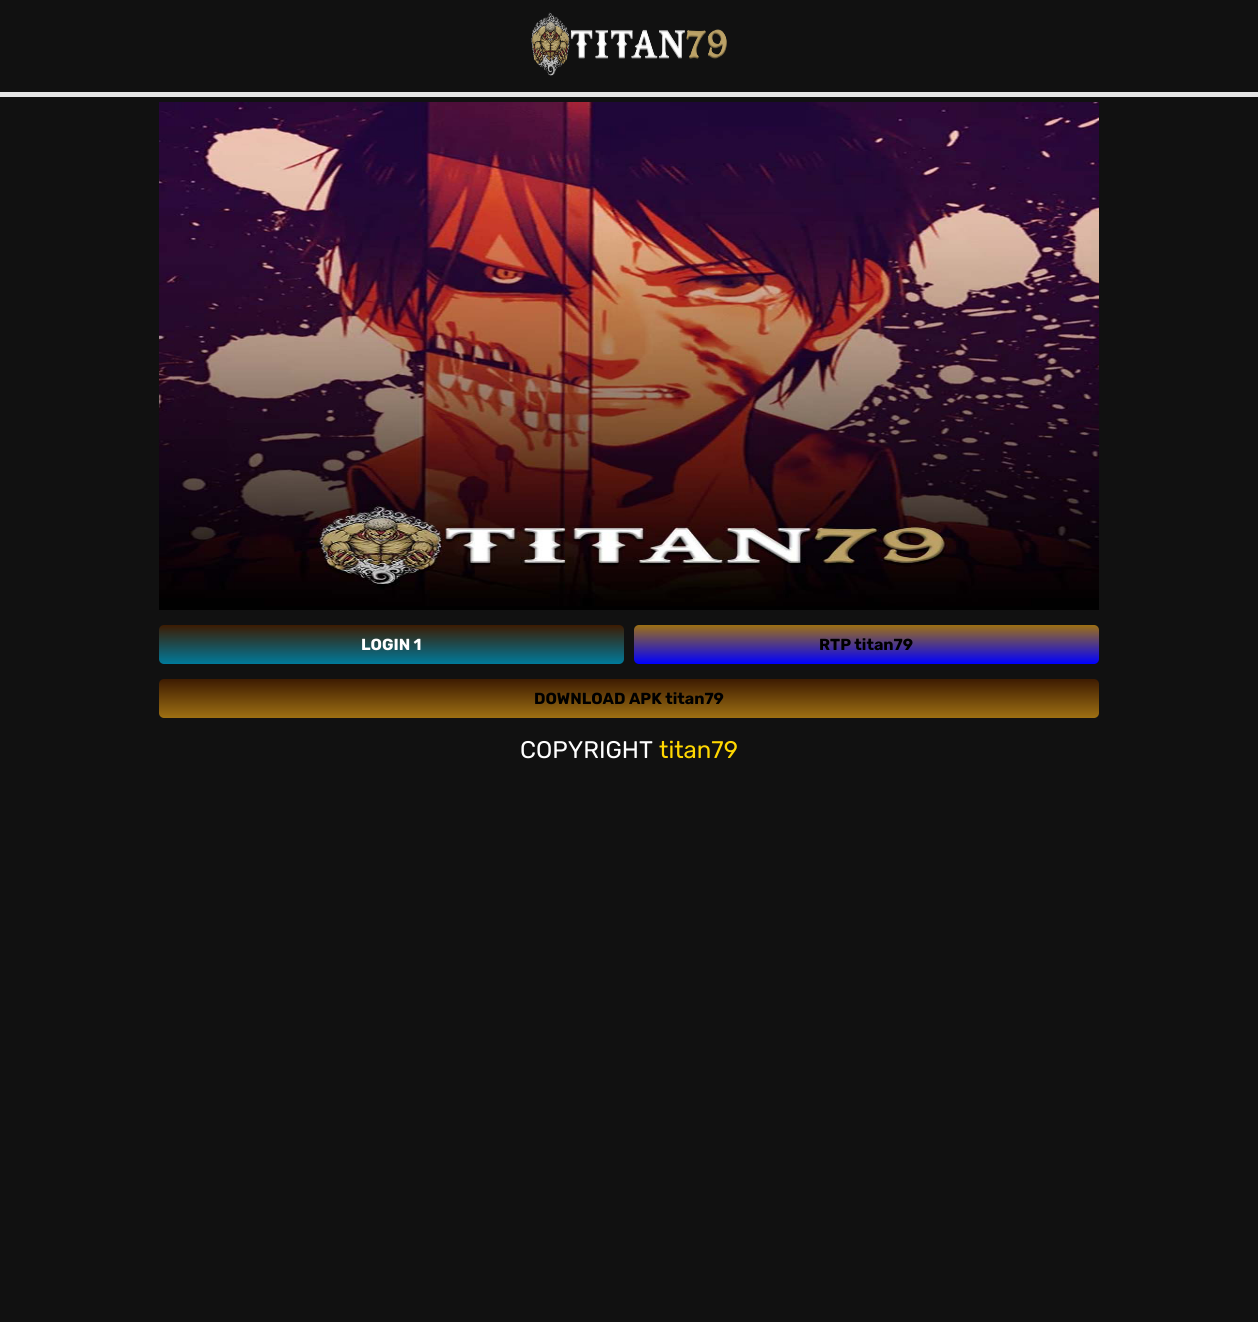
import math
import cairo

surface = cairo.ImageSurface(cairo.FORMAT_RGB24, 1258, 1322)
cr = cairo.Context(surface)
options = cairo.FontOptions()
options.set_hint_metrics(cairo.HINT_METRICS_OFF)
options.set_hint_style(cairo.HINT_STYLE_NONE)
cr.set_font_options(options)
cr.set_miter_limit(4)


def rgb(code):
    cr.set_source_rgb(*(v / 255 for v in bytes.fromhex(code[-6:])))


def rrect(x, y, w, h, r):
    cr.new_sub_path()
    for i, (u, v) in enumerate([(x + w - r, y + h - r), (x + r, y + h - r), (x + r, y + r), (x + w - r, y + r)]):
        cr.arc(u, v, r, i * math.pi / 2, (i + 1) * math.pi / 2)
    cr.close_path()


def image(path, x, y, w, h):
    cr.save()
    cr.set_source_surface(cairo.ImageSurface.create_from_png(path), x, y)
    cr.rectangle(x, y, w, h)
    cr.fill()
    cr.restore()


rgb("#111111")
cr.paint()
rgb("#e6e6e6")
cr.rectangle(0, 92, 1258, 5)
cr.fill()
image("img/1.png", 531, 12, 196, 64)
image("img/2.png", 159, 102, 940, 508)
gradient = cairo.LinearGradient(392, 625, 392, 664)
gradient.add_color_stop_rgba(0, 0.239, 0.106, 0.004, 1)
gradient.add_color_stop_rgba(1, 0, 0.478, 0.608, 1)
cr.set_source(gradient)
rrect(159, 625, 465, 39, 5)
cr.fill()
gradient = cairo.LinearGradient(867, 625, 867, 664)
gradient.add_color_stop_rgba(0, 0.62, 0.439, 0.075, 1)
gradient.add_color_stop_rgba(1, 0, 0, 1, 1)
cr.set_source(gradient)
rrect(634, 625, 465, 39, 5)
cr.fill()
gradient = cairo.LinearGradient(629, 679, 629, 718)
gradient.add_color_stop_rgba(0, 0.239, 0.106, 0.004, 1)
gradient.add_color_stop_rgba(1, 0.62, 0.439, 0.075, 1)
cr.set_source(gradient)
rrect(159, 679, 940, 39, 5)
cr.fill()
cr.select_font_face("Rubik", cairo.FONT_SLANT_NORMAL, cairo.FONT_WEIGHT_BOLD)
cr.set_font_size(16)
rgb("#ffffff")
cr.move_to(361, 650)
cr.show_text("LOGIN 1")
rgb("#000000")
cr.move_to(819, 650)
cr.show_text("RTP titan79")
cr.move_to(534, 704)
cr.show_text("DOWNLOAD APK titan79")
cr.select_font_face("Rubik")
cr.set_font_size(24)
rgb("#ffffff")
cr.move_to(520, 758)
cr.show_text("COPYRIGHT")
rgb("#ffd700")
cr.move_to(659, 758)
cr.show_text("titan79")
surface.write_to_png("page.png")
